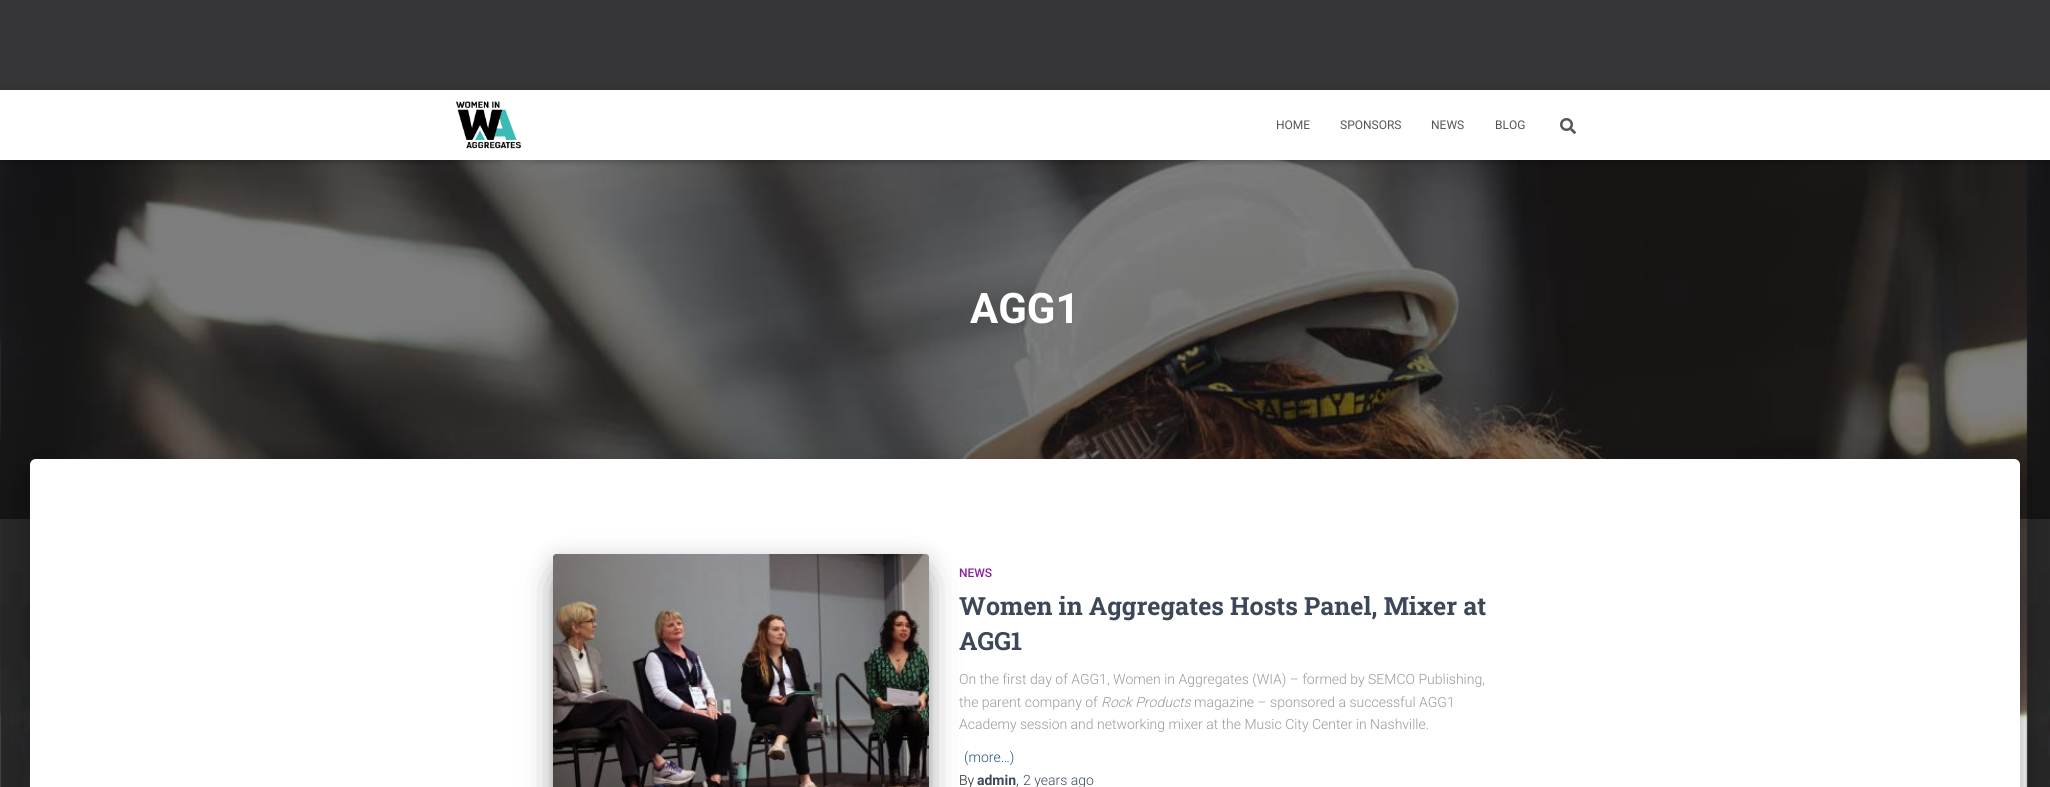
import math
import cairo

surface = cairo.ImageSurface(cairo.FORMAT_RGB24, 2050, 787)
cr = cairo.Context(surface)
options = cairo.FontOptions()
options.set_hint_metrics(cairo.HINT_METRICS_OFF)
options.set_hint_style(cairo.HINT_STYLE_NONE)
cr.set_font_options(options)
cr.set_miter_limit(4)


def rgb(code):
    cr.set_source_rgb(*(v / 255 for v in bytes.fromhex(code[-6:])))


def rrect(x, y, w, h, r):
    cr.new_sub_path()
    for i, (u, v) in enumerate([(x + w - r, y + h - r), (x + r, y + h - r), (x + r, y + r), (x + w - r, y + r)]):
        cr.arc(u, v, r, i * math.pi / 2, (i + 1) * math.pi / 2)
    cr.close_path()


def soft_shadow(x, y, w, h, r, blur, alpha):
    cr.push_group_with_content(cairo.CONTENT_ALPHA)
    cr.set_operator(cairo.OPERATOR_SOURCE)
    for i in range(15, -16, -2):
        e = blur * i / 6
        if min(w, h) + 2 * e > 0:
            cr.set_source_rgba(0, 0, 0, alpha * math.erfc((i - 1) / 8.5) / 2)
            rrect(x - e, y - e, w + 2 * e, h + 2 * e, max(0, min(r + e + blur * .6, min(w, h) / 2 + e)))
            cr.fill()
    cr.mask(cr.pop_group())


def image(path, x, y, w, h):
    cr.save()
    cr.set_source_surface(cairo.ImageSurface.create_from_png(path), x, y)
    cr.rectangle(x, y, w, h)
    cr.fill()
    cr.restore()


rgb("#ffffff")
cr.paint()
image("img/1.png", 0, 160, 2050, 627)
rgb("#363537")
cr.rectangle(0, 0, 2050, 90)
cr.fill()
cr.set_source_rgba(0, 0, 0, 0.5)
cr.rectangle(0, 160, 2050, 359)
cr.fill()
rgb("#000000")
soft_shadow(2, 96, 2046, 66, 0, 2.5, 0.1)
soft_shadow(0, 91, 2050, 70, 0, 5, 0.12)
soft_shadow(6, 97, 2038, 58, 0, 5, 0.42)
rgb("#ffffff")
cr.rectangle(0, 90, 2050, 70)
cr.fill()
image("img/2.png", 455, 101, 67, 48)
image("img/3.png", 1560, 118, 16, 16)
rgb("#000000")
soft_shadow(35, 472, 1980, 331, 1, 5, 0.2)
soft_shadow(25, 460, 2000, 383, 11, 15, 0.12)
soft_shadow(28, 473, 1994, 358, 8, 12, 0.14)
rgb("#ffffff")
cr.new_path()
cr.move_to(36, 459)
cr.line_to(2014, 459)
cr.curve_to(2017.5, 459, 2020, 461.5, 2020, 465)
cr.line_to(2020, 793)
cr.line_to(30, 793)
cr.line_to(30, 465)
cr.curve_to(30, 461.5, 32.5, 459, 36, 459)
cr.close_path()
cr.fill()
rgb("#000000")
soft_shadow(558, 567, 366, 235, 0, 5, 0.2)
soft_shadow(553, 558, 376, 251, 3, 12.5, 0.12)
soft_shadow(565, 582, 352, 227, 0, 19, 0.56)
image("img/4.png", 553, 554, 376, 233)
cr.select_font_face("Roboto")
cr.set_font_size(12)
rgb("#555555")
for x, y, s in [
    (1276, 129, "HOME"),
    (1340, 129, "SPONSORS"),
    (1431, 129, "NEWS"),
    (1495, 129, "BLOG"),
]:
    cr.move_to(x, y)
    cr.show_text(s)
cr.select_font_face("Roboto", cairo.FONT_SLANT_NORMAL, cairo.FONT_WEIGHT_BOLD)
cr.set_font_size(42)
rgb("#ffffff")
cr.move_to(970, 323)
cr.show_text("AGG1")
cr.select_font_face("Roboto Medium")
cr.set_font_size(12)
rgb("#89229b")
cr.move_to(959, 577)
cr.show_text("NEWS")
cr.select_font_face("Roboto Slab", cairo.FONT_SLANT_NORMAL, cairo.FONT_WEIGHT_BOLD)
cr.set_font_size(25)
rgb("#3c4858")
cr.move_to(959, 615)
cr.show_text("Women in Aggregates Hosts Panel, Mixer at")
cr.move_to(959, 650)
cr.show_text("AGG1")
cr.select_font_face("Roboto Light")
cr.set_font_size(14)
rgb("#999999")
cr.move_to(959, 684)
cr.show_text("On the first day of AGG1, Women in Aggregates (WIA) – formed by SEMCO Publishing,")
cr.move_to(959, 707)
cr.show_text("the parent company of")
cr.select_font_face("Roboto Light", cairo.FONT_SLANT_ITALIC)
cr.move_to(1101, 707)
cr.show_text("Rock Products")
cr.select_font_face("Roboto Light")
cr.move_to(1194, 707)
cr.show_text("magazine – sponsored a successful AGG1")
cr.move_to(959, 729)
cr.show_text("Academy session and networking mixer at the Music City Center in Nashville.")
rgb("#23527c")
cr.move_to(964, 762)
cr.show_text("(more…)")
rgb("#212121")
cr.move_to(959, 785)
cr.show_text("By")
cr.select_font_face("Roboto", cairo.FONT_SLANT_NORMAL, cairo.FONT_WEIGHT_BOLD)
rgb("#3c4858")
cr.move_to(977, 785)
cr.show_text("admin")
cr.select_font_face("Roboto Light")
rgb("#212121")
cr.move_to(1016, 785)
cr.show_text(",")
rgb("#3c4858")
cr.move_to(1023, 785)
cr.show_text("2 years ago")
surface.write_to_png("page.png")
